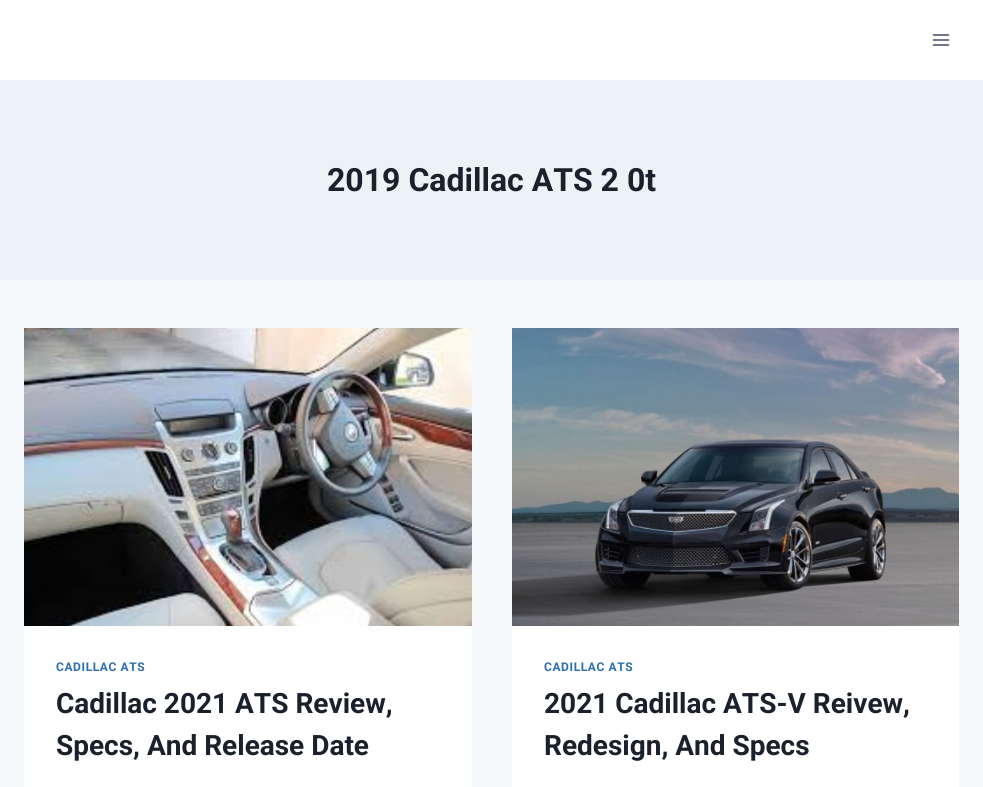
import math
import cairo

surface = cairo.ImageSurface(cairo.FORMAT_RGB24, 983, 787)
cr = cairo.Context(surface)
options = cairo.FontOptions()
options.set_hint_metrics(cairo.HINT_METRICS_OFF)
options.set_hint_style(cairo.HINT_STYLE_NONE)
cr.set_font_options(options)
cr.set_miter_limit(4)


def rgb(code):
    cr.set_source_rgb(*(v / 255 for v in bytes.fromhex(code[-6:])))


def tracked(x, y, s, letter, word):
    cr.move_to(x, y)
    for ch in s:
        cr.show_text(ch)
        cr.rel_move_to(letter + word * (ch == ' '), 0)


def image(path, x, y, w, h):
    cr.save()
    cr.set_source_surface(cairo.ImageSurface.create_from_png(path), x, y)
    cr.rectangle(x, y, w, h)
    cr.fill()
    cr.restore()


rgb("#f7fafc")
cr.paint()
rgb("#ffffff")
cr.rectangle(0, 0, 983, 80)
cr.fill()
image("img/1.png", 932, 34, 18, 12)
rgb("#edf2f7")
cr.rectangle(0, 80, 983, 200)
cr.fill()
rgb("#ffffff")
cr.rectangle(24, 626, 448, 161)
cr.fill()
image("img/2.png", 24, 328, 448, 298)
cr.rectangle(512, 626, 447, 161)
cr.fill()
image("img/3.png", 512, 328, 447, 298)
cr.select_font_face("Roboto", cairo.FONT_SLANT_NORMAL, cairo.FONT_WEIGHT_BOLD)
cr.set_font_size(32)
rgb("#1a202c")
cr.move_to(327, 191)
cr.show_text("2019 Cadillac ATS 2 0t")
cr.set_font_size(12)
rgb("#2b6cb0")
tracked(56, 671, "CADILLAC ATS", 0.6, 0)
cr.set_font_size(28)
rgb("#1a202c")
cr.move_to(56, 713)
cr.show_text("Cadillac 2021 ATS Review,")
cr.move_to(56, 755)
cr.show_text("Specs, And Release Date")
cr.set_font_size(12)
rgb("#2b6cb0")
tracked(544, 671, "CADILLAC ATS", 0.6, 0)
cr.set_font_size(28)
rgb("#1a202c")
cr.move_to(544, 713)
cr.show_text("2021 Cadillac ATS-V Reivew,")
cr.move_to(544, 755)
cr.show_text("Redesign, And Specs")
surface.write_to_png("page.png")
